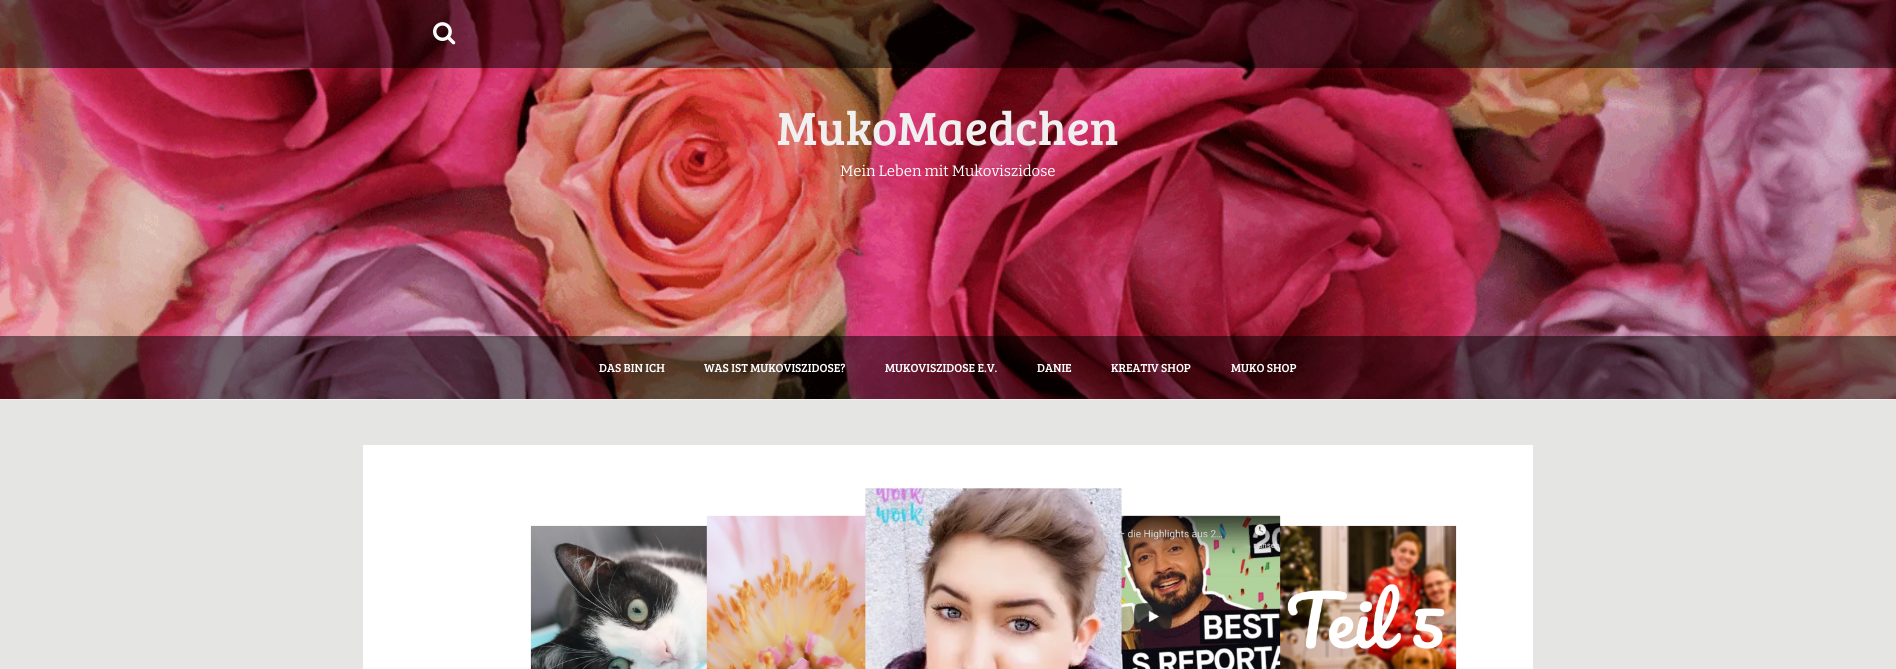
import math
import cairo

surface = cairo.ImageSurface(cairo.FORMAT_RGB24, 1896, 669)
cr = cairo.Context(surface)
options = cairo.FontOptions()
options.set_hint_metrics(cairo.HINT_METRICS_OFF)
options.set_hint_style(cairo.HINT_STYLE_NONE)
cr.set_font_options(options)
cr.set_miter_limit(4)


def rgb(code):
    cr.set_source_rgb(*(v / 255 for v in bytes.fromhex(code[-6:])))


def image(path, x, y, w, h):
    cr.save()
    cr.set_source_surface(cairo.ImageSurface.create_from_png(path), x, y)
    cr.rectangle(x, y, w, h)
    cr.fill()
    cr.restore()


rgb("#e5e6e4")
cr.paint()
image("img/2.png", 0, 0, 1896, 399)
cr.set_source_rgba(0, 0, 0, 0.5)
cr.rectangle(0, 0, 1896, 68)
cr.fill()
image("img/1.png", 433, 22, 23, 23)
cr.rectangle(0, 336, 1896, 63)
cr.fill()
rgb("#f0f0f0")
cr.rectangle(0, 399, 1896, 1)
cr.fill()
rgb("#ffffff")
cr.rectangle(363, 445, 1170, 224)
cr.fill()
image("img/3.png", 530, 525, 177, 144)
image("img/4.png", 706, 515, 160, 154)
image("img/7.png", 1280, 525, 177, 144)
image("img/6.png", 1121, 515, 160, 154)
image("img/5.png", 865, 488, 257, 181)
cr.select_font_face("Bree Serif")
cr.set_font_size(48)
rgb("#f0f0f0")
cr.move_to(777, 145)
cr.show_text("MukoMaedchen")
cr.select_font_face("Bitter")
cr.set_font_size(15)
rgb("#ffffff")
cr.move_to(840, 176)
cr.show_text("Mein Leben mit Mukoviszidose")
cr.select_font_face("Bree Serif")
cr.set_font_size(12)
for x, y, s in [
    (599, 372, "DAS BIN ICH"),
    (704, 372, "WAS IST MUKOVISZIDOSE?"),
    (885, 372, "MUKOVISZIDOSE E.V."),
    (1037, 372, "DANIE"),
    (1111, 372, "KREATIV SHOP"),
    (1231, 372, "MUKO SHOP"),
]:
    cr.move_to(x, y)
    cr.show_text(s)
surface.write_to_png("page.png")
